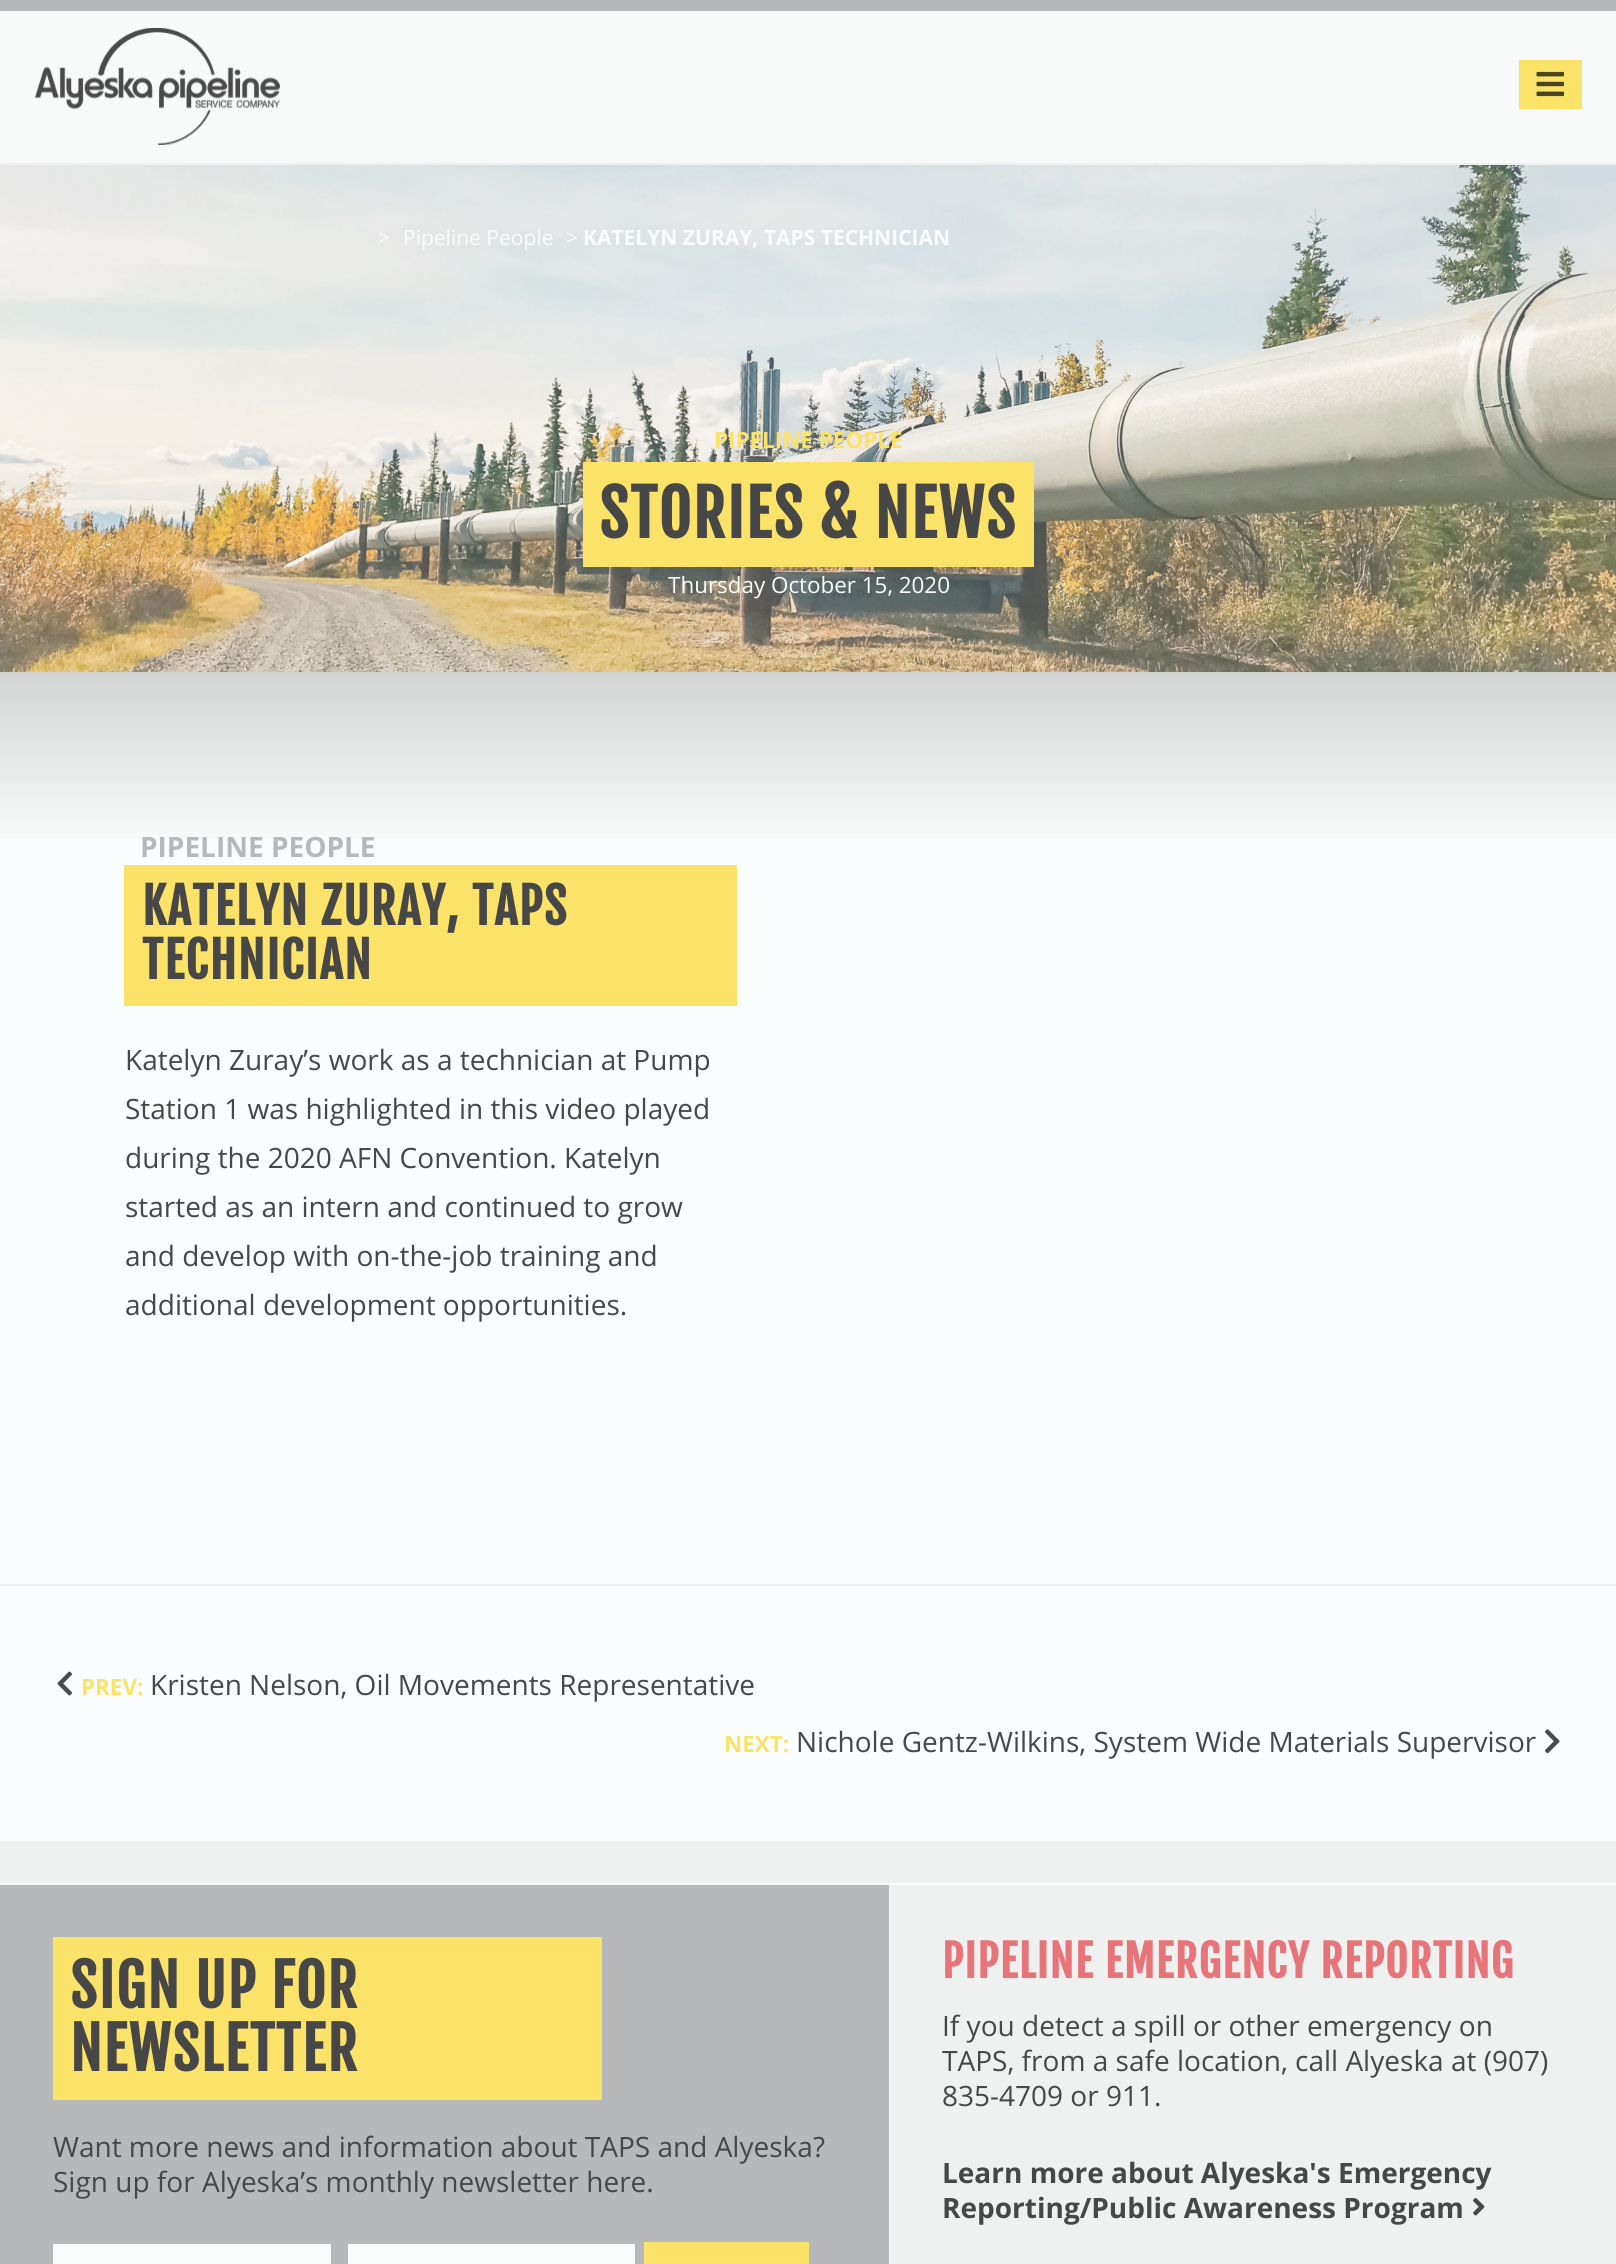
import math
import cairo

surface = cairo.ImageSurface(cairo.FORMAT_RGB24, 1616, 2264)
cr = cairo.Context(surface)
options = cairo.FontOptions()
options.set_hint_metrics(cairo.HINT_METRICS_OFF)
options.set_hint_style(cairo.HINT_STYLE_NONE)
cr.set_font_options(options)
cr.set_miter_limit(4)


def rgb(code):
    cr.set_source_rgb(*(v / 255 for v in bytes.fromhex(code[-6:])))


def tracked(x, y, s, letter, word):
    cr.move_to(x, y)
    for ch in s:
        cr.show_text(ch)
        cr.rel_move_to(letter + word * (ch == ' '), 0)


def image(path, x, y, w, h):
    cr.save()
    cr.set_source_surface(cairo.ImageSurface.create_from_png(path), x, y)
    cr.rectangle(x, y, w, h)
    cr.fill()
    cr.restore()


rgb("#eff0f0")
cr.paint()
rgb("#b6b8ba")
cr.rectangle(0, 0, 1616, 11)
cr.fill()
rgb("#f8f9f9")
cr.rectangle(0, 11, 1616, 152)
cr.fill()
image("img/1.png", 35, 28, 245, 117)
rgb("#fae368")
cr.rectangle(1519, 60, 63, 49)
cr.fill()
image("img/2.png", 1536, 71, 29, 26)
rgb("#f9fdfd")
cr.rectangle(0, 165, 1616, 1676)
cr.fill()
image("img/3.png", 0, 165, 1616, 507)
rgb("#fae368")
cr.rectangle(583, 462, 451, 105)
cr.fill()
gradient = cairo.LinearGradient(809, 1542, 809, 672)
gradient.add_color_stop_rgba(0.8, 0.98, 0.988, 0.988, 1)
gradient.add_color_stop_rgba(1, 0.827, 0.835, 0.835, 1)
cr.set_source(gradient)
cr.rectangle(0, 672, 1616, 167)
cr.fill()
rgb("#fae368")
cr.rectangle(124, 865, 613, 141)
cr.fill()
rgb("#eff0f0")
cr.rectangle(0, 1584, 1616, 2)
cr.fill()
image("img/4.png", 57, 1671, 15, 25)
image("img/5.png", 1545, 1729, 15, 25)
for x, y, w, h, color in [
    (0, 1883, 1616, 2, "#fafbfb"),
    (0, 1885, 889, 379, "#b6b8ba"),
    (53, 1937, 549, 163, "#fae368"),
    (53, 2244, 278, 20, "#fafbfb"),
    (348, 2244, 287, 20, "#fafbfb"),
    (644, 2242, 165, 22, "#fae368"),
]:
    rgb(color)
    cr.rectangle(x, y, w, h)
    cr.fill()
image("img/6.png", 1473, 2198, 12, 18)
cr.select_font_face("Open Sans")
cr.set_font_size(21)
rgb("#fafbfb")
for x, y, s in [
    (378, 245, ">"),
    (403, 245, "Pipeline People"),
    (566, 245, ">"),
]:
    cr.move_to(x, y)
    cr.show_text(s)
cr.select_font_face("Open Sans", cairo.FONT_SLANT_NORMAL, cairo.FONT_WEIGHT_BOLD)
cr.move_to(583, 245)
cr.show_text("KATELYN ZURAY, TAPS TECHNICIAN")
cr.set_font_size(22.4)
rgb("#fae368")
cr.move_to(714, 448)
cr.show_text("PIPELINE PEOPLE")
cr.select_font_face("Fjalla One", cairo.FONT_SLANT_NORMAL, cairo.FONT_WEIGHT_BOLD)
cr.set_font_size(63)
rgb("#474747")
tracked(599, 538, "STORIES & NEWS", 1.9, 0)
cr.select_font_face("Open Sans")
cr.set_font_size(22.4)
rgb("#fafbfb")
cr.move_to(668, 593)
cr.show_text("Thursday October 15, 2020")
cr.select_font_face("Open Sans", cairo.FONT_SLANT_NORMAL, cairo.FONT_WEIGHT_BOLD)
cr.set_font_size(28)
rgb("#b6b8ba")
cr.move_to(140, 857)
cr.show_text("PIPELINE PEOPLE")
cr.select_font_face("Fjalla One", cairo.FONT_SLANT_NORMAL, cairo.FONT_WEIGHT_BOLD)
cr.set_font_size(49)
rgb("#474747")
tracked(142, 925, "KATELYN ZURAY, TAPS", 1.5, 0)
tracked(142, 979, "TECHNICIAN", 1.5, 0)
cr.select_font_face("Open Sans")
cr.set_font_size(28)
for x, y, s in [
    (125, 1070, "Katelyn Zuray’s work as a technician at Pump"),
    (125, 1119, "Station 1 was highlighted in this video played"),
    (125, 1168, "during the 2020 AFN Convention. Katelyn"),
    (125, 1217, "started as an intern and continued to grow"),
    (125, 1266, "and develop with on-the-job training and"),
    (125, 1315, "additional development opportunities."),
]:
    cr.move_to(x, y)
    cr.show_text(s)
cr.select_font_face("Open Sans", cairo.FONT_SLANT_NORMAL, cairo.FONT_WEIGHT_BOLD)
cr.set_font_size(22.4)
rgb("#fae368")
cr.move_to(81, 1695)
cr.show_text("PREV:")
cr.select_font_face("Open Sans")
cr.set_font_size(28)
rgb("#474747")
cr.move_to(150, 1695)
cr.show_text("Kristen Nelson, Oil Movements Representative")
cr.select_font_face("Open Sans", cairo.FONT_SLANT_NORMAL, cairo.FONT_WEIGHT_BOLD)
cr.set_font_size(22.4)
rgb("#fae368")
cr.move_to(724, 1752)
cr.show_text("NEXT:")
cr.select_font_face("Open Sans")
cr.set_font_size(28)
rgb("#474747")
cr.move_to(796, 1752)
cr.show_text("Nichole Gentz-Wilkins, System Wide Materials Supervisor")
cr.select_font_face("Fjalla One", cairo.FONT_SLANT_NORMAL, cairo.FONT_WEIGHT_BOLD)
cr.set_font_size(57.75)
tracked(70, 2008, "SIGN UP FOR", 1.75, 0)
tracked(70, 2071, "NEWSLETTER", 1.75, 0)
cr.select_font_face("Open Sans")
cr.set_font_size(28)
cr.move_to(53, 2157)
cr.show_text("Want more news and information about TAPS and Alyeska?")
cr.move_to(53, 2192)
cr.show_text("Sign up for Alyeska’s monthly newsletter here.")
cr.select_font_face("Fjalla One", cairo.FONT_SLANT_NORMAL, cairo.FONT_WEIGHT_BOLD)
cr.set_font_size(43.75)
rgb("#e77479")
tracked(942, 1978, "PIPELINE EMERGENCY REPORTING", 1.3, 0)
cr.select_font_face("Open Sans")
cr.set_font_size(28)
rgb("#474747")
for x, y, s in [
    (942, 2036, "If you detect a spill or other emergency on"),
    (942, 2071, "TAPS, from a safe location, call Alyeska at (907)"),
    (942, 2106, "835-4709 or 911."),
]:
    cr.move_to(x, y)
    cr.show_text(s)
cr.select_font_face("Open Sans", cairo.FONT_SLANT_NORMAL, cairo.FONT_WEIGHT_BOLD)
cr.move_to(942, 2183)
cr.show_text("Learn more about Alyeska's Emergency")
cr.move_to(942, 2218)
cr.show_text("Reporting/Public Awareness Program")
surface.write_to_png("page.png")
